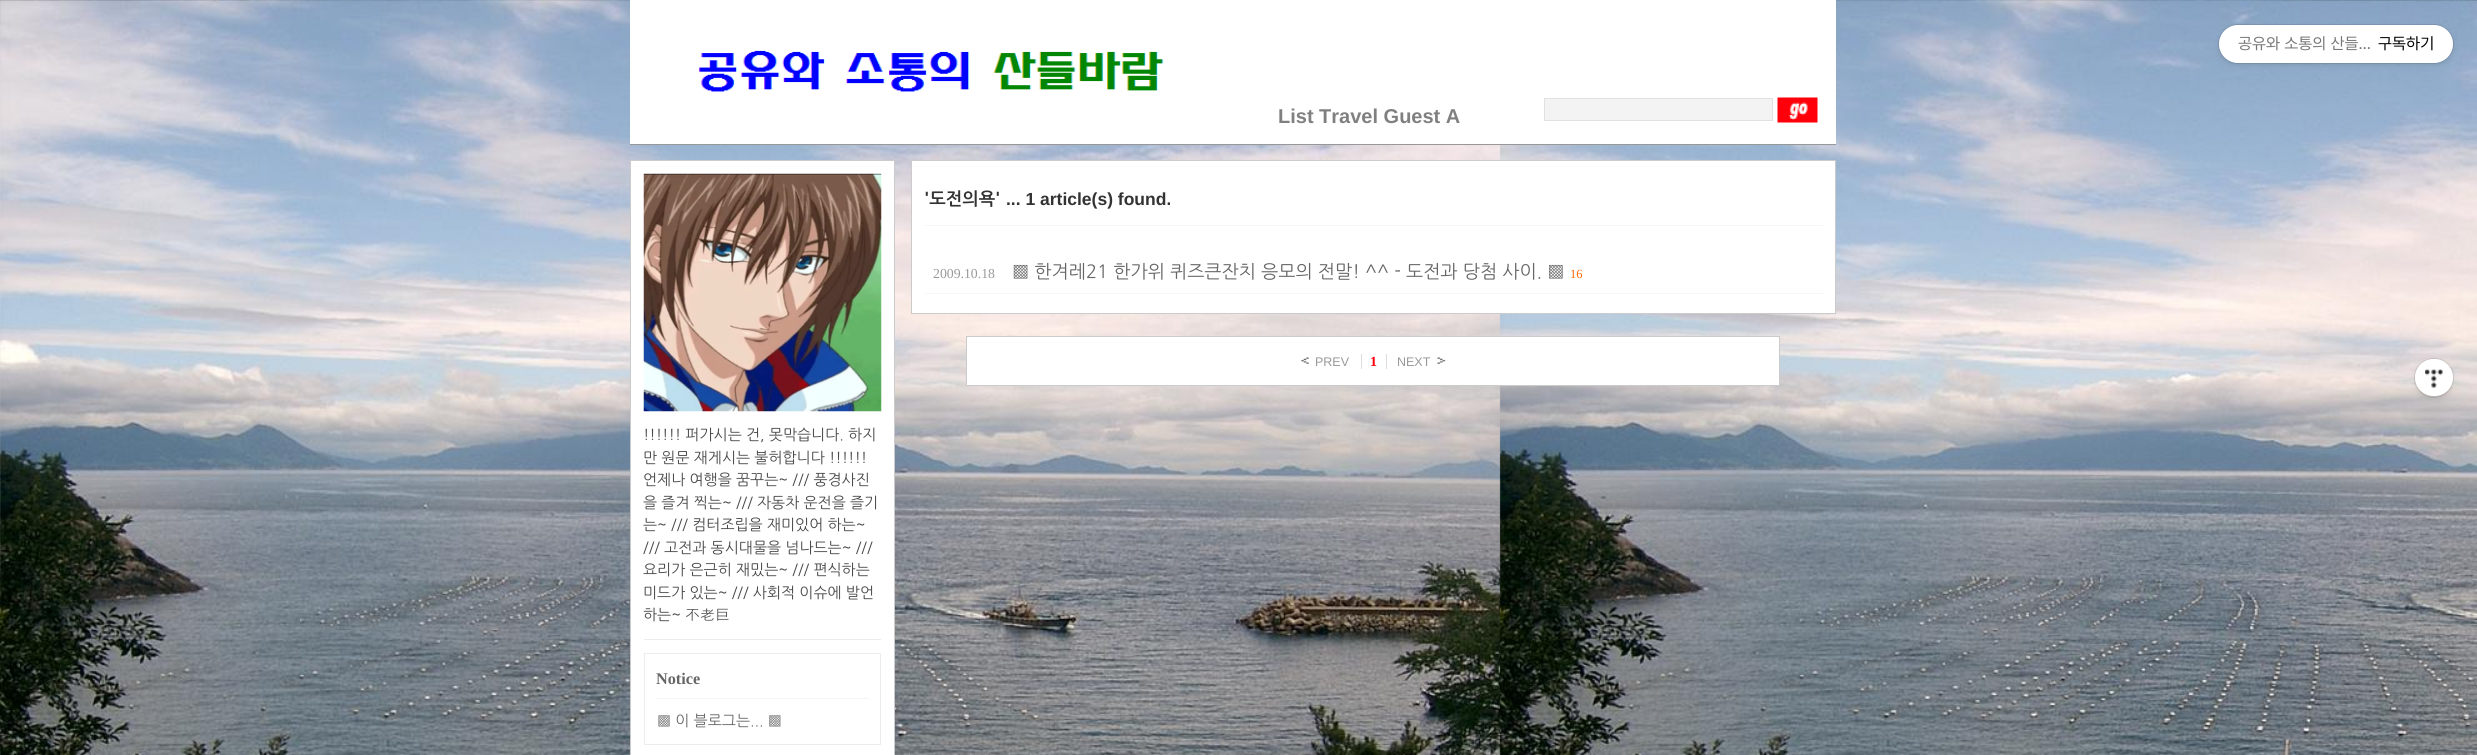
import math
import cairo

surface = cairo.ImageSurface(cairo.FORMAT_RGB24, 2477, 755)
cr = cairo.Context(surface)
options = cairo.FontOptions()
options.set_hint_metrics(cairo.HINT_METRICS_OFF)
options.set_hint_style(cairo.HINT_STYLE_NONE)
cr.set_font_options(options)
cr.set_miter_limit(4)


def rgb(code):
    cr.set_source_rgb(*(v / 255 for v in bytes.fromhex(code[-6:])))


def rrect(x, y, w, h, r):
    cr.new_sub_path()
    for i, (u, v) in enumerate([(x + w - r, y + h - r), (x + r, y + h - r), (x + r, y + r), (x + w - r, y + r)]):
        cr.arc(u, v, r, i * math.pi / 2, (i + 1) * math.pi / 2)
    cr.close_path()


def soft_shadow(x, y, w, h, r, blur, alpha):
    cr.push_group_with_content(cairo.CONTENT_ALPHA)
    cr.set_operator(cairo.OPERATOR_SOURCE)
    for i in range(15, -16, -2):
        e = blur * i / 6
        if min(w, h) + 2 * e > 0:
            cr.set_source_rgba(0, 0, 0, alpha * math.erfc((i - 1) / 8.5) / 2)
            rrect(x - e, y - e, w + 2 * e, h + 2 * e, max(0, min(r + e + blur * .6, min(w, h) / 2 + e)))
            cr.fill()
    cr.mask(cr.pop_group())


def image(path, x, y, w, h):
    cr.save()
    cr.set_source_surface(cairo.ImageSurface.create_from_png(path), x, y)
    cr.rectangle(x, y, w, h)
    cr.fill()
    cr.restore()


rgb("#ffffff")
cr.paint()
image("img/1.png", 0, 0, 2477, 755)
rgb("#000000")
soft_shadow(2219, 28, 234, 37, 18.5, 3, 0.1)
rrect(2218.5, 24.5, 235, 39, 19.5)
cr.set_source_rgba(0, 0, 0, 0.1)
cr.set_line_width(1)
cr.stroke()
rgb("#ffffff")
rrect(2219, 25, 234, 38, 19)
cr.fill()
cr.rectangle(630, 0, 1206, 144)
cr.fill()
rgb("#989898")
cr.rectangle(630, 144, 1206, 1)
cr.fill()
image("img/2.png", 699, 50, 465, 42)
rgb("#f3f3f3")
cr.rectangle(1544.5, 98.5, 228, 22)
cr.fill_preserve()
rgb("#e1e1e1")
cr.stroke()
image("img/3.png", 1777, 97, 41, 26)
rgb("#ffffff")
cr.rectangle(911.5, 160.5, 924, 153)
cr.fill_preserve()
rgb("#cbcbcb")
cr.stroke()
rgb("#f6f6f6")
cr.rectangle(925, 225, 898, 1)
cr.fill()
cr.rectangle(925, 293, 898, 1)
cr.fill()
rgb("#ffffff")
cr.rectangle(966.5, 336.5, 813, 49)
cr.fill_preserve()
rgb("#cbcbcb")
cr.stroke()
image("img/4.png", 1301, 357, 8, 7)
rgb("#dddddd")
cr.rectangle(1361, 354, 1, 15)
cr.fill()
cr.rectangle(1386, 354, 1, 15)
cr.fill()
image("img/5.png", 1437, 357, 9, 7)
rgb("#ffffff")
cr.rectangle(630.5, 160.5, 264, 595)
cr.fill_preserve()
rgb("#cbcbcb")
cr.stroke()
image("img/6.png", 643, 173, 239, 239)
rgb("#ececec")
cr.rectangle(644, 639, 237, 1)
cr.fill()
cr.rectangle(644.5, 653.5, 236, 91)
cr.stroke()
rgb("#f5f5f5")
cr.rectangle(656, 698, 213, 1)
cr.fill()
rgb("#000000")
soft_shadow(2415, 361, 38, 38, 19, 3, 0.1)
cr.arc(2434, 378, 19.5, 0, 2 * math.pi)
cr.set_source_rgba(0, 0, 0, 0.1)
cr.stroke()
rgb("#ffffff")
rrect(2415, 359, 38, 37, 18.5)
cr.fill()
image("img/7.png", 2425, 369, 18, 19)
cr.select_font_face("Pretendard")
cr.set_font_size(16.25)
rgb("#777777")
cr.move_to(2238, 49)
cr.show_text("공유와 소통의 산들…")
rgb("#000000")
cr.move_to(2378, 49)
cr.show_text("구독하기")
cr.select_font_face("Liberation Sans", cairo.FONT_SLANT_NORMAL, cairo.FONT_WEIGHT_BOLD)
cr.set_font_size(20)
rgb("#808080")
cr.move_to(1278, 123)
cr.show_text("List Travel Guest A")
cr.select_font_face("NanumGothic", cairo.FONT_SLANT_NORMAL, cairo.FONT_WEIGHT_BOLD)
cr.set_font_size(17.5)
rgb("#333333")
cr.move_to(924, 205)
cr.show_text("'도전의욕'")
cr.select_font_face("Liberation Sans", cairo.FONT_SLANT_NORMAL, cairo.FONT_WEIGHT_BOLD)
cr.move_to(1006, 205)
cr.show_text("... 1 article(s) found.")
cr.select_font_face("Liberation Serif")
cr.set_font_size(13.75)
rgb("#999999")
cr.move_to(933, 278)
cr.show_text("2009.10.18")
cr.select_font_face("NanumGothic")
cr.set_font_size(18.3)
rgb("#666666")
cr.move_to(1012, 278)
cr.show_text("▩ 한겨레21 한가위 퀴즈큰잔치 응모의 전말! ^^ - 도전과 당첨 사이. ▩")
cr.select_font_face("Liberation Serif")
cr.set_font_size(12.5)
rgb("#ff6600")
cr.move_to(1570, 278)
cr.show_text("16")
cr.select_font_face("Liberation Sans")
rgb("#999999")
cr.move_to(1315, 366)
cr.show_text("PREV")
cr.select_font_face("Liberation Serif", cairo.FONT_SLANT_NORMAL, cairo.FONT_WEIGHT_BOLD)
cr.set_font_size(14)
rgb("#ff000a")
cr.move_to(1370, 366)
cr.show_text("1")
cr.select_font_face("Liberation Sans")
cr.set_font_size(12.5)
rgb("#999999")
cr.move_to(1397, 366)
cr.show_text("NEXT")
cr.select_font_face("NanumGothic")
cr.set_font_size(15)
rgb("#494949")
for x, y, s in [
    (643, 440, "!!!!!! 퍼가시는 건, 못막습니다. 하지"),
    (643, 463, "만 원문 재게시는 불허합니다 !!!!!!"),
    (643, 485, "언제나 여행을 꿈꾸는~ /// 풍경사진"),
    (643, 508, "을 즐겨 찍는~ /// 자동차 운전을 즐기"),
    (643, 530, "는~ /// 컴터조립을 재미있어 하는~"),
    (643, 553, "/// 고전과 동시대물을 넘나드는~ ///"),
    (643, 575, "요리가 은근히 재밌는~ /// 편식하는"),
    (643, 598, "미드가 있는~ /// 사회적 이슈에 발언"),
    (643, 620, "하는~"),
]:
    cr.move_to(x, y)
    cr.show_text(s)
cr.select_font_face("Dotum")
cr.move_to(685, 620)
cr.show_text("不老巨")
cr.select_font_face("Liberation Serif", cairo.FONT_SLANT_NORMAL, cairo.FONT_WEIGHT_BOLD)
cr.set_font_size(16.25)
rgb("#666666")
cr.move_to(656, 684)
cr.show_text("Notice")
cr.select_font_face("NanumGothic")
cr.set_font_size(15)
cr.move_to(657, 726)
cr.show_text("▩ 이 블로그는... ▩")
surface.write_to_png("page.png")
